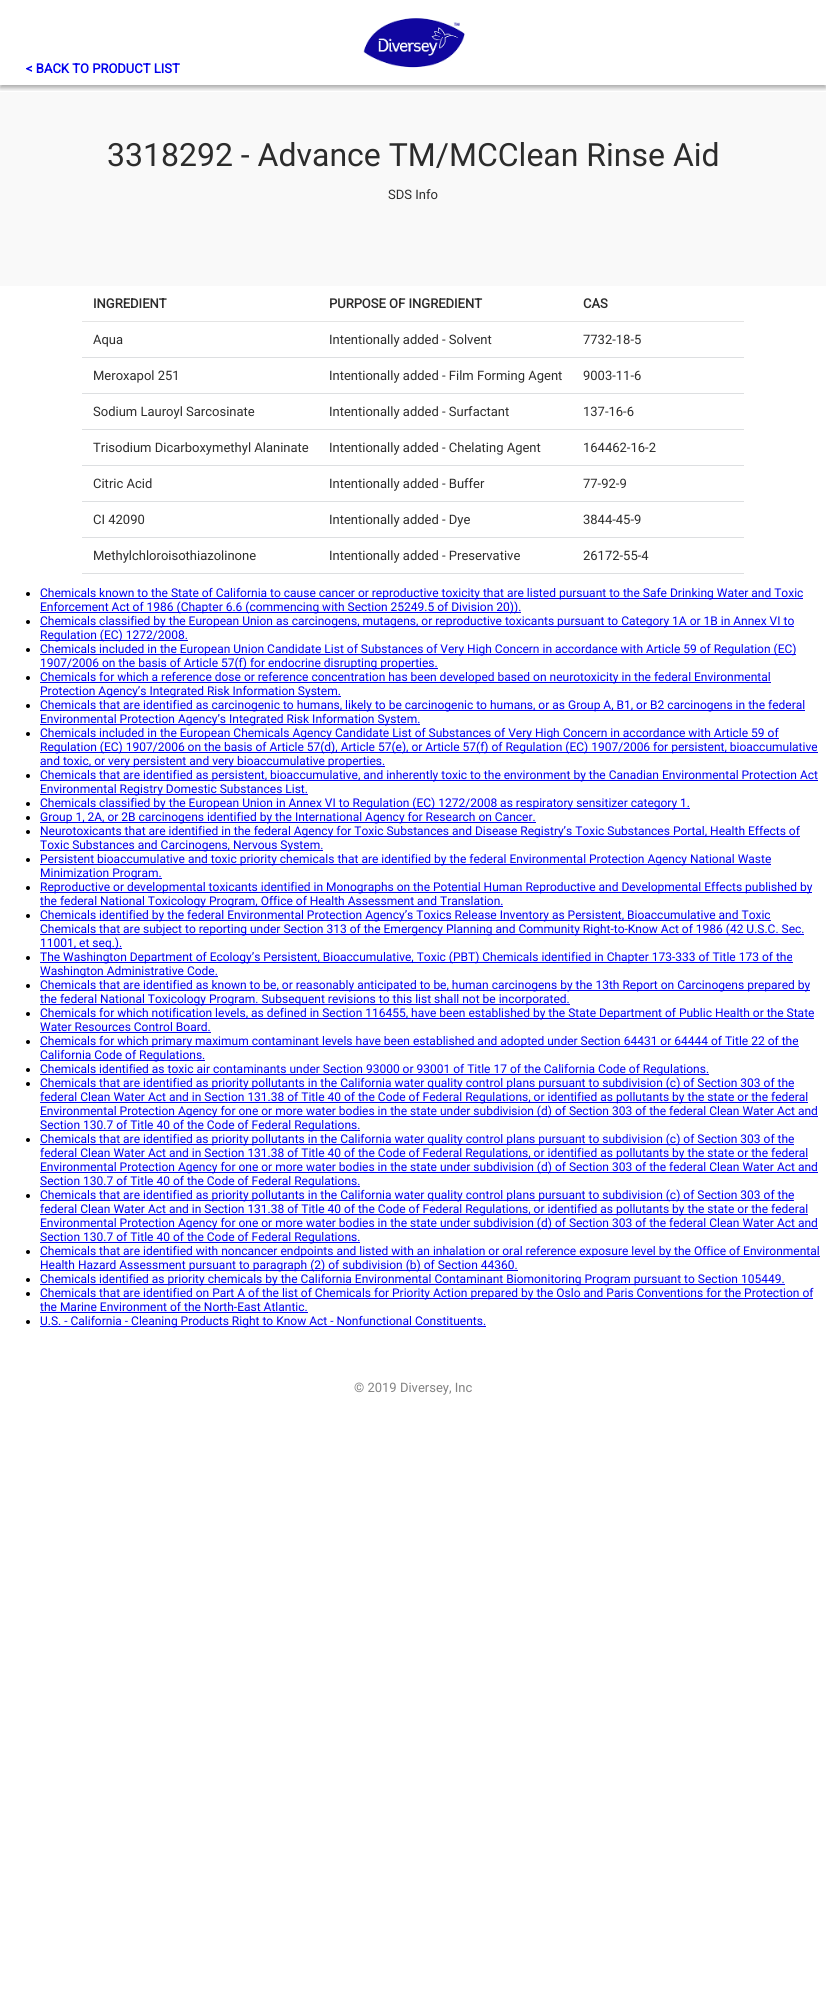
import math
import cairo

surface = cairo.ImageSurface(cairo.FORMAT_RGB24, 826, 1992)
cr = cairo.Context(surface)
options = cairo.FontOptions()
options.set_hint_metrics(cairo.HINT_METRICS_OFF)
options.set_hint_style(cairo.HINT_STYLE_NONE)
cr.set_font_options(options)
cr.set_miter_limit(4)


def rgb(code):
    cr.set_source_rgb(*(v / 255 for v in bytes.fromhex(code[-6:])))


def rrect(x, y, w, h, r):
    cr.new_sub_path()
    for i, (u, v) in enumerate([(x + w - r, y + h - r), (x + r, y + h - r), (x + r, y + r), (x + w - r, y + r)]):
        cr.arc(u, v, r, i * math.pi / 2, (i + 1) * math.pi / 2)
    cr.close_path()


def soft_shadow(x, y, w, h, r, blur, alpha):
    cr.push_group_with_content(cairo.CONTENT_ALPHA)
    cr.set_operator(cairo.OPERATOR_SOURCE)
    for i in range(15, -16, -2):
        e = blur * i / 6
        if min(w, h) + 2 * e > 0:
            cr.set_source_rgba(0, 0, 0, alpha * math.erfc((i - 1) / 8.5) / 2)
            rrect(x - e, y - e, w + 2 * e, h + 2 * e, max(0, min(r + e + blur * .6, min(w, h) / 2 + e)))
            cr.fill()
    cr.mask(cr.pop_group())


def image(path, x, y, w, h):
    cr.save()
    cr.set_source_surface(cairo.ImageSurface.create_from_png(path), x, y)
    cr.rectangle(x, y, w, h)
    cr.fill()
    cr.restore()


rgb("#ffffff")
cr.paint()
cr.save()
cr.rectangle(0, 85, 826, 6)
cr.clip()
rgb("#323232")
soft_shadow(0, 3, 826, 85, 0, 2.5, 0.43)
cr.restore()
image("img/1.png", 363, 18, 102, 50)
for x, y, w, h, color in [
    (0, 92, 826, 194, "#f9f9f9"),
    (82, 321, 662, 1, "#e4e4e4"),
    (82, 357, 662, 1, "#dddfe1"),
    (82, 393, 662, 1, "#dddfe1"),
    (82, 429, 662, 1, "#dddfe1"),
    (82, 465, 662, 1, "#dddfe1"),
    (82, 501, 662, 1, "#dddfe1"),
    (82, 537, 662, 1, "#dddfe1"),
    (82, 573, 662, 1, "#dddfe1"),
]:
    rgb(color)
    cr.rectangle(x, y, w, h)
    cr.fill()
rgb("#000000")
cr.arc(28, 594, 2, 0, 2 * math.pi)
cr.fill()
rgb("#0000ee")
cr.rectangle(40, 598, 763, 1)
cr.fill()
cr.rectangle(40, 612, 481, 1)
cr.fill()
rgb("#000000")
cr.arc(28, 622, 2, 0, 2 * math.pi)
cr.fill()
rgb("#0000ee")
cr.rectangle(40, 626, 754, 1)
cr.fill()
cr.rectangle(40, 640, 148, 1)
cr.fill()
rgb("#000000")
cr.arc(28, 650, 2, 0, 2 * math.pi)
cr.fill()
rgb("#0000ee")
cr.rectangle(40, 654, 756, 1)
cr.fill()
cr.rectangle(40, 668, 398, 1)
cr.fill()
rgb("#000000")
cr.arc(28, 678, 2, 0, 2 * math.pi)
cr.fill()
rgb("#0000ee")
cr.rectangle(40, 682, 731, 1)
cr.fill()
cr.rectangle(40, 696, 301, 1)
cr.fill()
rgb("#000000")
cr.arc(28, 706, 2, 0, 2 * math.pi)
cr.fill()
rgb("#0000ee")
cr.rectangle(40, 710, 765, 1)
cr.fill()
cr.rectangle(40, 724, 380, 1)
cr.fill()
rgb("#000000")
cr.arc(28, 734, 2, 0, 2 * math.pi)
cr.fill()
for x, y, w, h, color in [
    (40, 738, 739, 1, "#0000ee"),
    (40, 752, 778, 1, "#0000ee"),
    (40, 766, 345, 1, "#0000ee"),
]:
    rgb(color)
    cr.rectangle(x, y, w, h)
    cr.fill()
rgb("#000000")
cr.arc(28, 776, 2, 0, 2 * math.pi)
cr.fill()
rgb("#0000ee")
cr.rectangle(40, 780, 778, 1)
cr.fill()
cr.rectangle(40, 794, 268, 1)
cr.fill()
rgb("#000000")
cr.arc(28, 804, 2, 0, 2 * math.pi)
cr.fill()
rgb("#0000ee")
cr.rectangle(40, 808, 650, 1)
cr.fill()
rgb("#000000")
cr.arc(28, 818, 2, 0, 2 * math.pi)
cr.fill()
rgb("#0000ee")
cr.rectangle(40, 822, 496, 1)
cr.fill()
rgb("#000000")
cr.arc(28, 832, 2, 0, 2 * math.pi)
cr.fill()
rgb("#0000ee")
cr.rectangle(40, 836, 760, 1)
cr.fill()
cr.rectangle(40, 850, 283, 1)
cr.fill()
rgb("#000000")
cr.arc(28, 860, 2, 0, 2 * math.pi)
cr.fill()
rgb("#0000ee")
cr.rectangle(40, 864, 731, 1)
cr.fill()
cr.rectangle(40, 878, 122, 1)
cr.fill()
rgb("#000000")
cr.arc(28, 888, 2, 0, 2 * math.pi)
cr.fill()
rgb("#0000ee")
cr.rectangle(40, 892, 772, 1)
cr.fill()
cr.rectangle(40, 906, 463, 1)
cr.fill()
rgb("#000000")
cr.arc(28, 916, 2, 0, 2 * math.pi)
cr.fill()
for x, y, w, h, color in [
    (40, 920, 731, 1, "#0000ee"),
    (40, 934, 764, 1, "#0000ee"),
    (40, 948, 82, 1, "#0000ee"),
]:
    rgb(color)
    cr.rectangle(x, y, w, h)
    cr.fill()
rgb("#000000")
cr.arc(28, 958, 2, 0, 2 * math.pi)
cr.fill()
rgb("#0000ee")
cr.rectangle(40, 962, 753, 1)
cr.fill()
cr.rectangle(40, 976, 178, 1)
cr.fill()
rgb("#000000")
cr.arc(28, 986, 2, 0, 2 * math.pi)
cr.fill()
rgb("#0000ee")
cr.rectangle(40, 990, 770, 1)
cr.fill()
cr.rectangle(40, 1004, 530, 1)
cr.fill()
rgb("#000000")
cr.arc(28, 1014, 2, 0, 2 * math.pi)
cr.fill()
rgb("#0000ee")
cr.rectangle(40, 1018, 774, 1)
cr.fill()
cr.rectangle(40, 1032, 171, 1)
cr.fill()
rgb("#000000")
cr.arc(28, 1042, 2, 0, 2 * math.pi)
cr.fill()
rgb("#0000ee")
cr.rectangle(40, 1046, 759, 1)
cr.fill()
cr.rectangle(40, 1060, 165, 1)
cr.fill()
rgb("#000000")
cr.arc(28, 1070, 2, 0, 2 * math.pi)
cr.fill()
rgb("#0000ee")
cr.rectangle(40, 1074, 669, 1)
cr.fill()
rgb("#000000")
cr.arc(28, 1084, 2, 0, 2 * math.pi)
cr.fill()
for x, y, w, h, color in [
    (40, 1088, 754, 1, "#0000ee"),
    (40, 1102, 768, 1, "#0000ee"),
    (40, 1116, 778, 1, "#0000ee"),
    (40, 1130, 320, 1, "#0000ee"),
]:
    rgb(color)
    cr.rectangle(x, y, w, h)
    cr.fill()
rgb("#000000")
cr.arc(28, 1140, 2, 0, 2 * math.pi)
cr.fill()
for x, y, w, h, color in [
    (40, 1144, 754, 1, "#0000ee"),
    (40, 1158, 768, 1, "#0000ee"),
    (40, 1172, 778, 1, "#0000ee"),
    (40, 1186, 320, 1, "#0000ee"),
]:
    rgb(color)
    cr.rectangle(x, y, w, h)
    cr.fill()
rgb("#000000")
cr.arc(28, 1196, 2, 0, 2 * math.pi)
cr.fill()
for x, y, w, h, color in [
    (40, 1200, 754, 1, "#0000ee"),
    (40, 1214, 768, 1, "#0000ee"),
    (40, 1228, 778, 1, "#0000ee"),
    (40, 1242, 320, 1, "#0000ee"),
]:
    rgb(color)
    cr.rectangle(x, y, w, h)
    cr.fill()
rgb("#000000")
cr.arc(28, 1252, 2, 0, 2 * math.pi)
cr.fill()
rgb("#0000ee")
cr.rectangle(40, 1256, 780, 1)
cr.fill()
cr.rectangle(40, 1270, 478, 1)
cr.fill()
rgb("#000000")
cr.arc(28, 1280, 2, 0, 2 * math.pi)
cr.fill()
rgb("#0000ee")
cr.rectangle(40, 1284, 745, 1)
cr.fill()
rgb("#000000")
cr.arc(28, 1294, 2, 0, 2 * math.pi)
cr.fill()
rgb("#0000ee")
cr.rectangle(40, 1298, 773, 1)
cr.fill()
cr.rectangle(40, 1312, 268, 1)
cr.fill()
rgb("#000000")
cr.arc(28, 1322, 2, 0, 2 * math.pi)
cr.fill()
rgb("#0000ee")
cr.rectangle(40, 1326, 446, 1)
cr.fill()
cr.select_font_face("Roboto", cairo.FONT_SLANT_NORMAL, cairo.FONT_WEIGHT_BOLD)
cr.set_font_size(13)
cr.move_to(26, 73)
cr.show_text("< BACK TO PRODUCT LIST")
cr.select_font_face("Roboto")
cr.set_font_size(32)
rgb("#2c2c2c")
cr.move_to(107, 166)
cr.show_text("3318292 - Advance TM/MCClean Rinse Aid")
cr.set_font_size(13)
cr.move_to(388, 199)
cr.show_text("SDS Info")
cr.select_font_face("Roboto", cairo.FONT_SLANT_NORMAL, cairo.FONT_WEIGHT_BOLD)
for x, y, s in [
    (93, 308, "INGREDIENT"),
    (329, 308, "PURPOSE OF INGREDIENT"),
    (583, 308, "CAS"),
]:
    cr.move_to(x, y)
    cr.show_text(s)
cr.select_font_face("Roboto")
for x, y, s in [
    (93, 344, "Aqua"),
    (329, 344, "Intentionally added - Solvent"),
    (583, 344, "7732-18-5"),
    (93, 380, "Meroxapol 251"),
    (329, 380, "Intentionally added - Film Forming Agent"),
    (583, 380, "9003-11-6"),
    (93, 416, "Sodium Lauroyl Sarcosinate"),
    (329, 416, "Intentionally added - Surfactant"),
    (583, 416, "137-16-6"),
    (93, 452, "Trisodium Dicarboxymethyl Alaninate"),
    (329, 452, "Intentionally added - Chelating Agent"),
    (583, 452, "164462-16-2"),
    (93, 488, "Citric Acid"),
    (329, 488, "Intentionally added - Buffer"),
    (583, 488, "77-92-9"),
    (93, 524, "CI 42090"),
    (329, 524, "Intentionally added - Dye"),
    (583, 524, "3844-45-9"),
    (93, 560, "Methylchloroisothiazolinone"),
    (329, 560, "Intentionally added - Preservative"),
    (583, 560, "26172-55-4"),
]:
    cr.move_to(x, y)
    cr.show_text(s)
cr.set_font_size(12)
rgb("#0000ee")
for x, y, s in [
    (40, 597, "Chemicals known to the State of California to cause cancer or reproductive toxicity that are listed pursuant to the Safe Drinking Water and Toxic"),
    (40, 611, "Enforcement Act of 1986 (Chapter 6.6 (commencing with Section 25249.5 of Division 20))."),
    (40, 625, "Chemicals classified by the European Union as carcinogens, mutagens, or reproductive toxicants pursuant to Category 1A or 1B in Annex VI to"),
    (40, 639, "Regulation (EC) 1272/2008."),
    (40, 653, "Chemicals included in the European Union Candidate List of Substances of Very High Concern in accordance with Article 59 of Regulation (EC)"),
    (40, 667, "1907/2006 on the basis of Article 57(f) for endocrine disrupting properties."),
    (40, 681, "Chemicals for which a reference dose or reference concentration has been developed based on neurotoxicity in the federal Environmental"),
    (40, 695, "Protection Agency’s Integrated Risk Information System."),
    (40, 709, "Chemicals that are identified as carcinogenic to humans, likely to be carcinogenic to humans, or as Group A, B1, or B2 carcinogens in the federal"),
    (40, 723, "Environmental Protection Agency’s Integrated Risk Information System."),
    (40, 737, "Chemicals included in the European Chemicals Agency Candidate List of Substances of Very High Concern in accordance with Article 59 of"),
    (40, 751, "Regulation (EC) 1907/2006 on the basis of Article 57(d), Article 57(e), or Article 57(f) of Regulation (EC) 1907/2006 for persistent, bioaccumulative"),
    (40, 765, "and toxic, or very persistent and very bioaccumulative properties."),
    (40, 779, "Chemicals that are identified as persistent, bioaccumulative, and inherently toxic to the environment by the Canadian Environmental Protection Act"),
    (40, 793, "Environmental Registry Domestic Substances List."),
    (40, 807, "Chemicals classified by the European Union in Annex VI to Regulation (EC) 1272/2008 as respiratory sensitizer category 1."),
    (40, 821, "Group 1, 2A, or 2B carcinogens identified by the International Agency for Research on Cancer."),
    (40, 835, "Neurotoxicants that are identified in the federal Agency for Toxic Substances and Disease Registry’s Toxic Substances Portal, Health Effects of"),
    (40, 849, "Toxic Substances and Carcinogens, Nervous System."),
    (40, 863, "Persistent bioaccumulative and toxic priority chemicals that are identified by the federal Environmental Protection Agency National Waste"),
    (40, 877, "Minimization Program."),
    (40, 891, "Reproductive or developmental toxicants identified in Monographs on the Potential Human Reproductive and Developmental Effects published by"),
    (40, 905, "the federal National Toxicology Program, Office of Health Assessment and Translation."),
    (40, 919, "Chemicals identified by the federal Environmental Protection Agency’s Toxics Release Inventory as Persistent, Bioaccumulative and Toxic"),
    (40, 933, "Chemicals that are subject to reporting under Section 313 of the Emergency Planning and Community Right-to-Know Act of 1986 (42 U.S.C. Sec."),
    (40, 947, "11001, et seq.)."),
    (40, 961, "The Washington Department of Ecology’s Persistent, Bioaccumulative, Toxic (PBT) Chemicals identified in Chapter 173-333 of Title 173 of the"),
    (40, 975, "Washington Administrative Code."),
    (40, 989, "Chemicals that are identified as known to be, or reasonably anticipated to be, human carcinogens by the 13th Report on Carcinogens prepared by"),
    (40, 1003, "the federal National Toxicology Program. Subsequent revisions to this list shall not be incorporated."),
    (40, 1017, "Chemicals for which notification levels, as defined in Section 116455, have been established by the State Department of Public Health or the State"),
    (40, 1031, "Water Resources Control Board."),
    (40, 1045, "Chemicals for which primary maximum contaminant levels have been established and adopted under Section 64431 or 64444 of Title 22 of the"),
    (40, 1059, "California Code of Regulations."),
    (40, 1073, "Chemicals identified as toxic air contaminants under Section 93000 or 93001 of Title 17 of the California Code of Regulations."),
    (40, 1087, "Chemicals that are identified as priority pollutants in the California water quality control plans pursuant to subdivision (c) of Section 303 of the"),
    (40, 1101, "federal Clean Water Act and in Section 131.38 of Title 40 of the Code of Federal Regulations, or identified as pollutants by the state or the federal"),
    (40, 1115, "Environmental Protection Agency for one or more water bodies in the state under subdivision (d) of Section 303 of the federal Clean Water Act and"),
    (40, 1129, "Section 130.7 of Title 40 of the Code of Federal Regulations."),
    (40, 1143, "Chemicals that are identified as priority pollutants in the California water quality control plans pursuant to subdivision (c) of Section 303 of the"),
    (40, 1157, "federal Clean Water Act and in Section 131.38 of Title 40 of the Code of Federal Regulations, or identified as pollutants by the state or the federal"),
    (40, 1171, "Environmental Protection Agency for one or more water bodies in the state under subdivision (d) of Section 303 of the federal Clean Water Act and"),
    (40, 1185, "Section 130.7 of Title 40 of the Code of Federal Regulations."),
    (40, 1199, "Chemicals that are identified as priority pollutants in the California water quality control plans pursuant to subdivision (c) of Section 303 of the"),
    (40, 1213, "federal Clean Water Act and in Section 131.38 of Title 40 of the Code of Federal Regulations, or identified as pollutants by the state or the federal"),
    (40, 1227, "Environmental Protection Agency for one or more water bodies in the state under subdivision (d) of Section 303 of the federal Clean Water Act and"),
    (40, 1241, "Section 130.7 of Title 40 of the Code of Federal Regulations."),
    (40, 1255, "Chemicals that are identified with noncancer endpoints and listed with an inhalation or oral reference exposure level by the Office of Environmental"),
    (40, 1269, "Health Hazard Assessment pursuant to paragraph (2) of subdivision (b) of Section 44360."),
    (40, 1283, "Chemicals identified as priority chemicals by the California Environmental Contaminant Biomonitoring Program pursuant to Section 105449."),
    (40, 1297, "Chemicals that are identified on Part A of the list of Chemicals for Priority Action prepared by the Oslo and Paris Conventions for the Protection of"),
    (40, 1311, "the Marine Environment of the North-East Atlantic."),
    (40, 1325, "U.S. - California - Cleaning Products Right to Know Act - Nonfunctional Constituents."),
]:
    cr.move_to(x, y)
    cr.show_text(s)
cr.set_font_size(13)
rgb("#828282")
cr.move_to(354, 1392)
cr.show_text("© 2019 Diversey, Inc")
surface.write_to_png("page.png")
